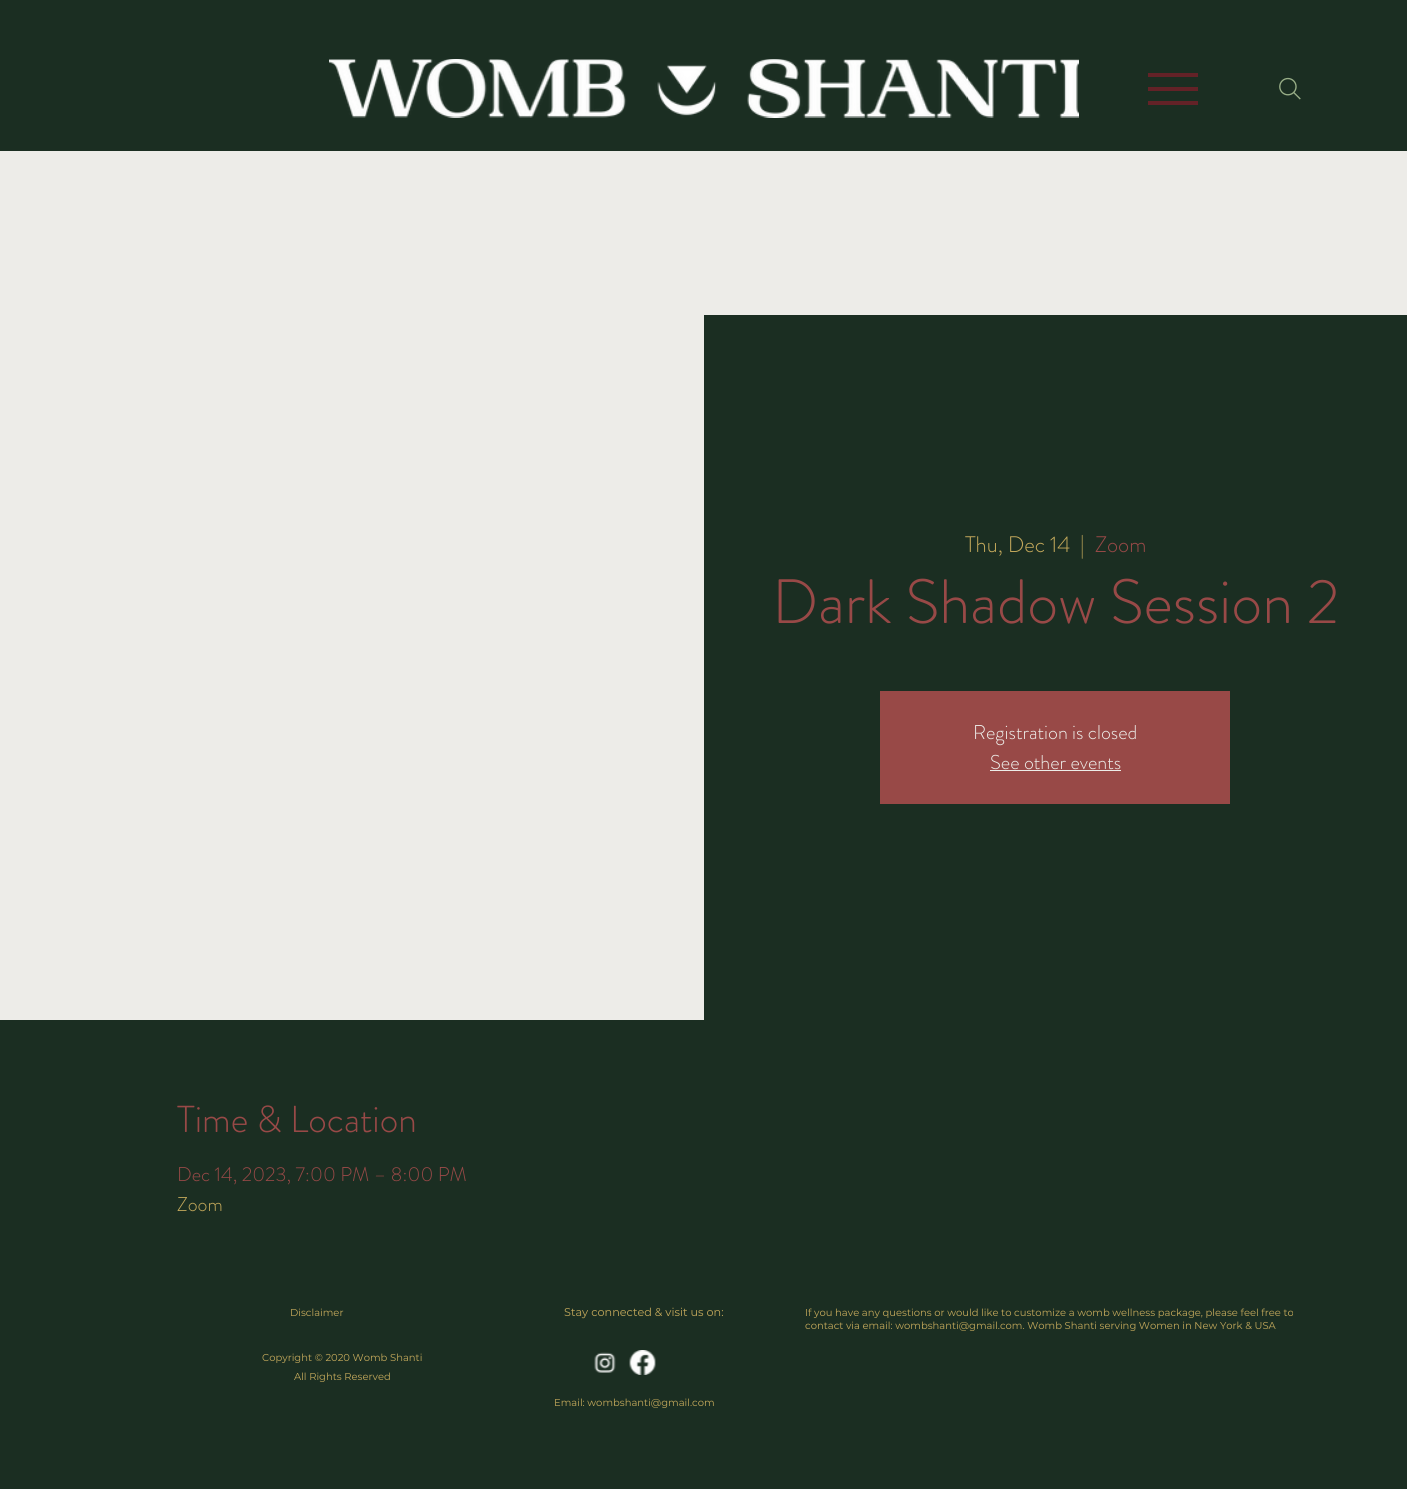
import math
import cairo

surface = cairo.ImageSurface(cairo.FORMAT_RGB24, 1407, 1489)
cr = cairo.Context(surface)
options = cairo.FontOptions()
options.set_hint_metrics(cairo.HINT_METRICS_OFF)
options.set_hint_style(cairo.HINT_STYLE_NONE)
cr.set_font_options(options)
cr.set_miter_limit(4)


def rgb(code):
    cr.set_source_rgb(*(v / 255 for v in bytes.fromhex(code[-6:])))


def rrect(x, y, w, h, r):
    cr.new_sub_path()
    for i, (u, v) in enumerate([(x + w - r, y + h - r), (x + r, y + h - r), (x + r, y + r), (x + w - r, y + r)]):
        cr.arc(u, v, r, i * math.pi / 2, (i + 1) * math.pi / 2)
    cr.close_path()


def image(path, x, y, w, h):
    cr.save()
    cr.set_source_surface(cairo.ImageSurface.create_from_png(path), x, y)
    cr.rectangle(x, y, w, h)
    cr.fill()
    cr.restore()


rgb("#edece8")
cr.paint()
rgb("#1b2e22")
cr.rectangle(0, 0, 1407, 151)
cr.fill()
image("img/1.png", 329, 59, 750, 59)
for x, y, w, h, color in [
    (1148, 101, 50, 4, "#632227"),
    (1148, 73, 50, 4, "#632227"),
    (1148, 87, 50, 4, "#632227"),
]:
    rgb(color)
    cr.rectangle(x, y, w, h)
    cr.fill()
image("img/2.png", 1279, 77, 22, 23)
for x, y, w, h, color in [
    (0, 315, 1407, 967, "#1b2e22"),
    (0, 315, 704, 705, "#edece8"),
    (880, 691, 350, 113, "#984947"),
    (990, 770, 131, 1, "#edece8"),
]:
    rgb(color)
    cr.rectangle(x, y, w, h)
    cr.fill()
rgb("#1b2e22")
rrect(0, 1281, 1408, 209, 1)
cr.fill()
image("img/3.png", 594, 1352, 22, 21)
image("img/4.png", 629, 1350, 27, 25)
cr.select_font_face("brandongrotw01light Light")
cr.set_font_size(22.5)
rgb("#c4a95b")
cr.move_to(965, 552)
cr.show_text("Thu, Dec 14")
cr.move_to(1080, 552)
cr.show_text("|")
rgb("#984947")
cr.move_to(1095, 552)
cr.show_text("Zoom")
cr.set_font_size(62.5)
cr.move_to(772, 623)
cr.show_text("Dark Shadow Session 2")
cr.set_font_size(20)
rgb("#edece8")
cr.move_to(973, 739)
cr.show_text("Registration is closed")
cr.move_to(990, 769)
cr.show_text("See other events")
cr.set_font_size(37.5)
rgb("#984947")
cr.move_to(177, 1132)
cr.show_text("Time & Location")
cr.set_font_size(20)
cr.move_to(177, 1181)
cr.show_text("Dec 14, 2023, 7:00 PM – 8:00 PM")
rgb("#c4a95b")
cr.move_to(177, 1211)
cr.show_text("Zoom")
cr.select_font_face("Montserrat")
cr.set_font_size(10)
cr.move_to(290, 1316)
cr.show_text("Disclaimer")
cr.set_font_size(11.25)
cr.move_to(564, 1316)
cr.show_text("Stay connected & visit us on:")
cr.set_font_size(10)
for x, y, s in [
    (805, 1316, "If you have any questions or would like to customize a womb wellness package, please feel free to"),
    (805, 1329, "contact via email: wombshanti@gmail.com. Womb Shanti serving Women in New York & USA"),
    (262, 1361, "Copyright © 2020 Womb Shanti"),
    (294, 1380, "All Rights Reserved"),
    (554, 1406, "Email: wombshanti@gmail.com"),
]:
    cr.move_to(x, y)
    cr.show_text(s)
surface.write_to_png("page.png")
